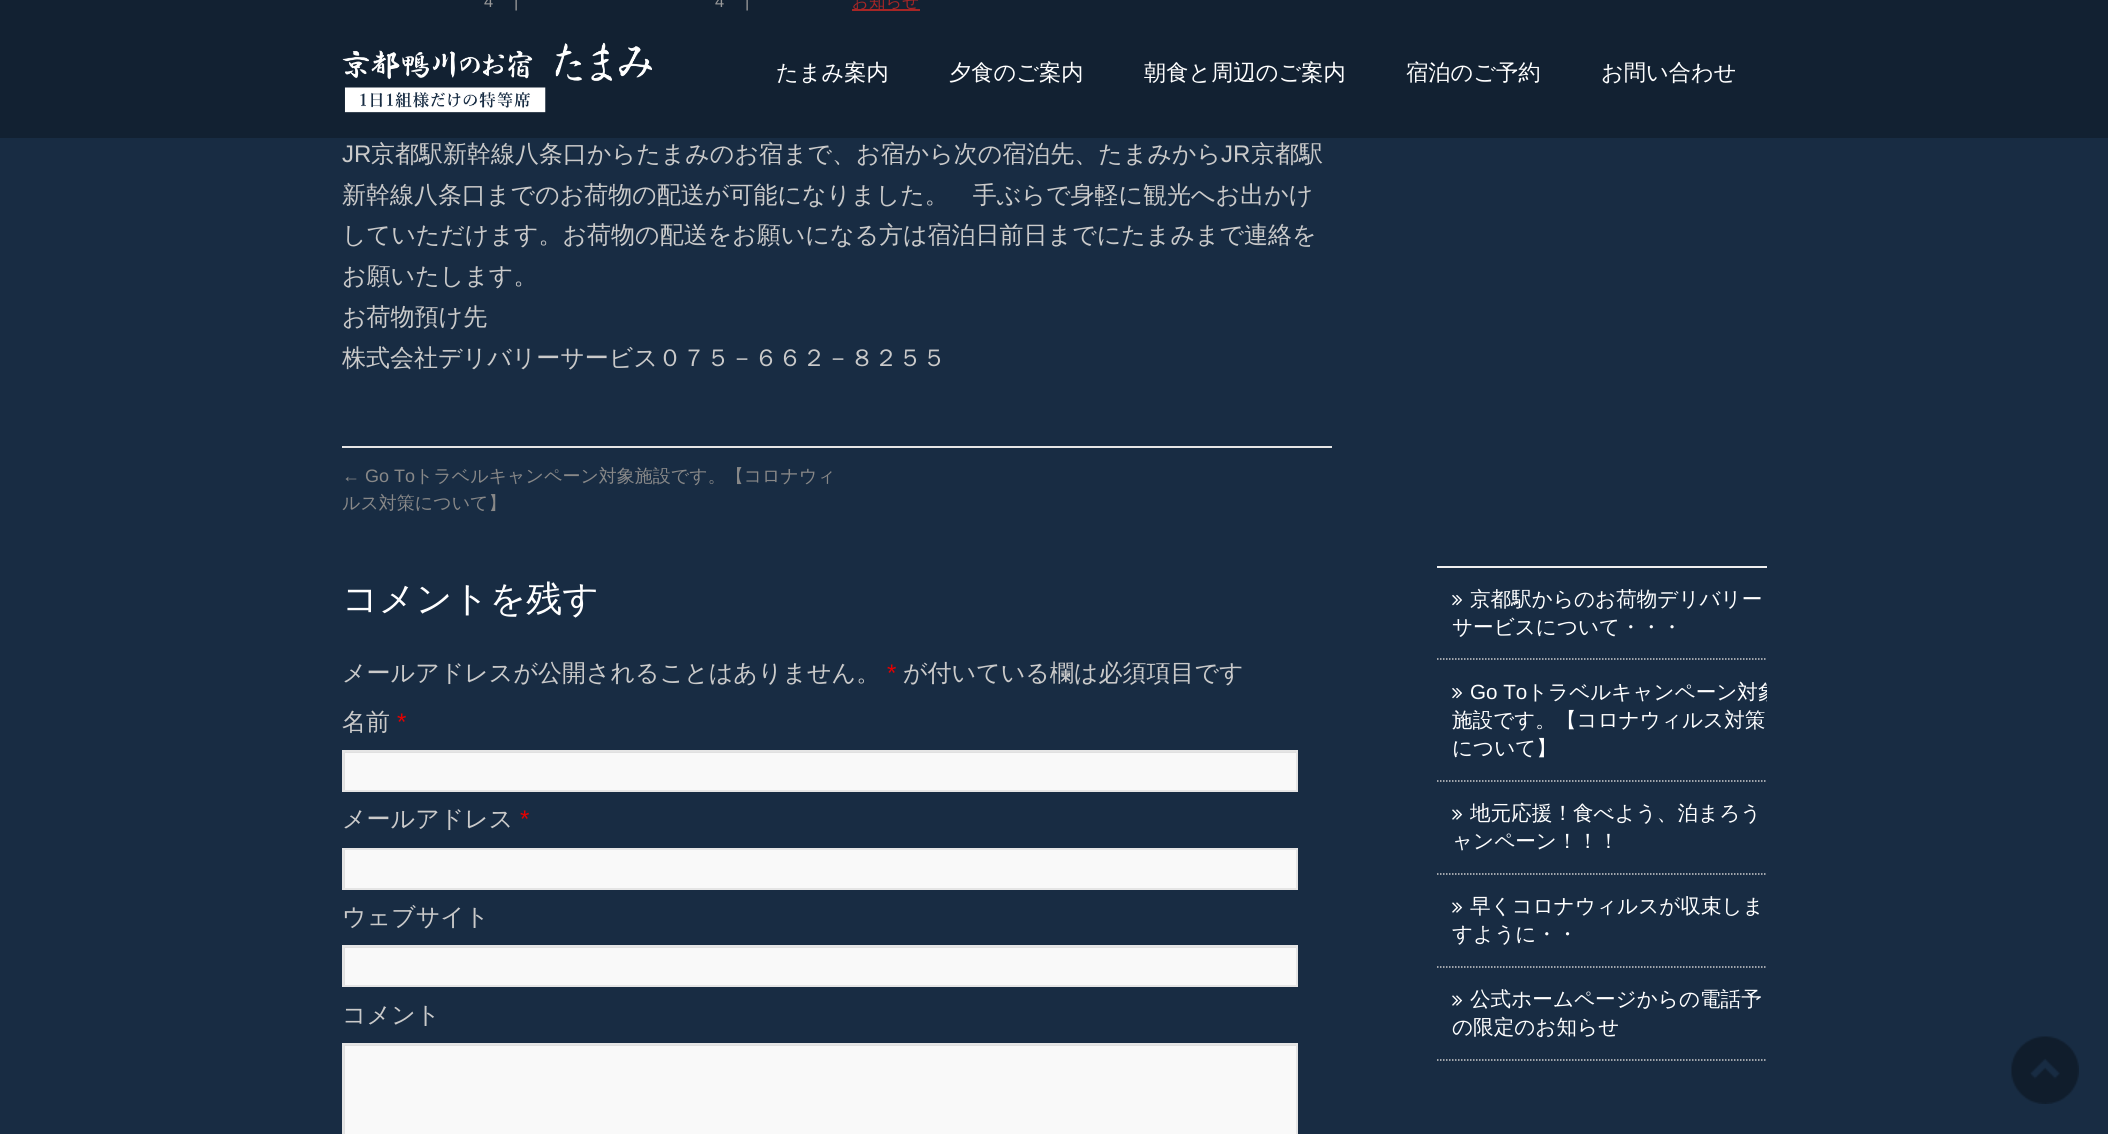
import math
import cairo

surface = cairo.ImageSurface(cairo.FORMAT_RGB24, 2108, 1134)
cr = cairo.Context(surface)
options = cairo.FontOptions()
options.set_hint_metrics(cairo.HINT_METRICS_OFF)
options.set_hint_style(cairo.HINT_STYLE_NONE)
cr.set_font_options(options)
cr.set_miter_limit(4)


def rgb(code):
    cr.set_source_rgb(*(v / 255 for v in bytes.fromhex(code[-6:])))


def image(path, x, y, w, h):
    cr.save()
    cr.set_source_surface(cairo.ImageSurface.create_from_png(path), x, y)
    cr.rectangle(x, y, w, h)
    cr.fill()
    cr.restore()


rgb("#182c43")
cr.paint()
for x, y, w, h, color in [
    (0, 0, 2108, 138, "#122132"),
    (852, 9, 68, 2, "#a62626"),
    (342, 446, 990, 2, "#e5e5e5"),
    (345, 753, 951, 37, "#f9f9f9"),
]:
    rgb(color)
    cr.rectangle(x, y, w, h)
    cr.fill()
cr.save()
cr.rectangle(344, 752, 952, 39)
cr.clip()
rgb("#e0e0e0")
cr.set_fill_rule(cairo.FILL_RULE_EVEN_ODD)
cr.new_path()
cr.move_to(195, 603)
cr.line_to(1444, 603)
cr.line_to(1444, 939)
cr.line_to(195, 939)
cr.close_path()
cr.move_to(345, 753)
cr.line_to(1298, 753)
cr.line_to(1298, 792)
cr.line_to(345, 792)
cr.close_path()
cr.fill()
cr.restore()
cr.rectangle(343, 751, 954, 40)
rgb("#e5e5e5")
cr.stroke()
rgb("#f9f9f9")
cr.rectangle(345, 850, 951, 38)
cr.fill()
cr.save()
cr.rectangle(344, 849, 952, 39)
cr.clip()
rgb("#e0e0e0")
cr.set_fill_rule(cairo.FILL_RULE_EVEN_ODD)
cr.new_path()
cr.move_to(195, 700)
cr.line_to(1444, 700)
cr.line_to(1444, 1036)
cr.line_to(195, 1036)
cr.close_path()
cr.move_to(345, 850)
cr.line_to(1298, 850)
cr.line_to(1298, 890)
cr.line_to(345, 890)
cr.close_path()
cr.fill()
cr.restore()
cr.rectangle(343, 849, 954, 40)
rgb("#e5e5e5")
cr.stroke()
rgb("#f9f9f9")
cr.rectangle(345, 948, 951, 37)
cr.fill()
cr.save()
cr.rectangle(344, 947, 952, 39)
cr.clip()
rgb("#e0e0e0")
cr.set_fill_rule(cairo.FILL_RULE_EVEN_ODD)
cr.new_path()
cr.move_to(195, 798)
cr.line_to(1444, 798)
cr.line_to(1444, 1134)
cr.line_to(195, 1134)
cr.close_path()
cr.move_to(345, 948)
cr.line_to(1298, 948)
cr.line_to(1298, 987)
cr.line_to(345, 987)
cr.close_path()
cr.fill()
cr.restore()
cr.rectangle(343, 946, 954, 40)
rgb("#e5e5e5")
cr.stroke()
rgb("#f9f9f9")
cr.rectangle(345, 1046, 951, 88)
cr.fill()
cr.save()
cr.rectangle(344, 1044, 952, 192)
cr.clip()
rgb("#e0e0e0")
cr.set_fill_rule(cairo.FILL_RULE_EVEN_ODD)
cr.new_path()
cr.move_to(195, 896)
cr.line_to(1444, 896)
cr.line_to(1444, 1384)
cr.line_to(195, 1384)
cr.close_path()
cr.move_to(345, 1046)
cr.line_to(1298, 1046)
cr.line_to(1298, 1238)
cr.line_to(345, 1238)
cr.close_path()
cr.fill()
cr.restore()
cr.rectangle(343, 1044, 954, 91)
rgb("#e5e5e5")
cr.stroke()
rgb("#efefef")
cr.rectangle(1437, 566, 330, 2)
cr.fill()
cr.new_path()
cr.move_to(1437, 659)
cr.line_to(1767, 659)
rgb("#cccccc")
cr.set_line_width(1.5)
cr.set_dash([1.5, 1.5])
cr.stroke()
image("img/1.png", 1452, 595, 10, 11)
cr.new_path()
cr.move_to(1437, 781)
cr.line_to(1767, 781)
cr.stroke()
image("img/1.png", 1452, 688, 10, 11)
cr.new_path()
cr.move_to(1437, 874)
cr.line_to(1767, 874)
cr.stroke()
image("img/2.png", 1452, 809, 11, 11)
cr.new_path()
cr.move_to(1437, 967)
cr.line_to(1767, 967)
cr.stroke()
image("img/2.png", 1452, 902, 11, 11)
cr.new_path()
cr.move_to(1437, 1060)
cr.line_to(1767, 1060)
cr.stroke()
image("img/2.png", 1452, 995, 11, 11)
image("img/3.png", 342, 42, 310, 71)
image("img/4.png", 2011, 1036, 68, 68)
cr.select_font_face("Liberation Sans")
cr.set_font_size(16.5)
rgb("#989898")
for x, y, s in [
    (484, 7, "4"),
    (514, 7, "|"),
    (715, 7, "4"),
    (745, 7, "|"),
]:
    cr.move_to(x, y)
    cr.show_text(s)
cr.select_font_face("WenQuanYi Zen Hei Medium")
rgb("#a62626")
cr.move_to(852, 7)
cr.show_text("お知らせ")
cr.select_font_face("Liberation Sans")
cr.set_font_size(24)
rgb("#cacaca")
cr.move_to(342, 162)
cr.show_text("JR")
cr.select_font_face("WenQuanYi Zen Hei Medium")
cr.move_to(371, 162)
cr.show_text("京都駅新幹線八条口からたまみのお宿まで、お宿から次の宿泊先、たまみから")
cr.select_font_face("Liberation Sans")
cr.move_to(1221, 162)
cr.show_text("JR")
cr.select_font_face("WenQuanYi Zen Hei Medium")
for x, y, s in [
    (1251, 162, "京都駅"),
    (342, 203, "新幹線八条口までのお荷物の配送が可能になりました。　手ぶらで身軽に観光へお出かけ"),
    (342, 243, "していただけます。お荷物の配送をお願いになる方は宿泊日前日までにたまみまで連絡を"),
    (342, 284, "お願いたします。"),
    (342, 325, "お荷物預け先"),
    (342, 366, "株式会社デリバリーサービス０７５－６６２－８２５５"),
]:
    cr.move_to(x, y)
    cr.show_text(s)
cr.select_font_face("Liberation Sans")
cr.set_font_size(18)
rgb("#888888")
cr.move_to(342, 482)
cr.show_text("← Go To")
cr.select_font_face("WenQuanYi Zen Hei Medium")
cr.move_to(415, 482)
cr.show_text("トラベルキャンペーン対象施設です。【コロナウィ")
cr.move_to(342, 509)
cr.show_text("ルス対策について】")
cr.set_font_size(36)
rgb("#ffffff")
cr.move_to(342, 611)
cr.show_text("コメントを残す")
cr.set_font_size(24)
rgb("#cacaca")
cr.move_to(342, 681)
cr.show_text("メールアドレスが公開されることはありません。")
cr.select_font_face("Liberation Sans")
rgb("#e50000")
cr.move_to(887, 681)
cr.show_text("*")
cr.select_font_face("WenQuanYi Zen Hei Medium")
rgb("#cacaca")
cr.move_to(903, 681)
cr.show_text("が付いている欄は必須項目です")
cr.move_to(342, 730)
cr.show_text("名前")
cr.select_font_face("Liberation Sans")
rgb("#e50000")
cr.move_to(397, 730)
cr.show_text("*")
cr.select_font_face("WenQuanYi Zen Hei Medium")
rgb("#cacaca")
cr.move_to(342, 827)
cr.show_text("メールアドレス")
cr.select_font_face("Liberation Sans")
rgb("#e50000")
cr.move_to(520, 827)
cr.show_text("*")
cr.select_font_face("WenQuanYi Zen Hei Medium")
rgb("#cacaca")
cr.move_to(342, 925)
cr.show_text("ウェブサイト")
cr.move_to(342, 1023)
cr.show_text("コメント")
cr.set_font_size(20.6)
rgb("#ffffff")
cr.move_to(1470, 606)
cr.show_text("京都駅からのお荷物デリバリー")
cr.move_to(1452, 634)
cr.show_text("サービスについて・・・")
cr.select_font_face("Liberation Sans")
cr.move_to(1470, 699)
cr.show_text("Go To")
cr.save()
cr.rectangle(1437, 660, 330, 120)
cr.clip()
cr.select_font_face("WenQuanYi Zen Hei Medium")
cr.move_to(1527, 699)
cr.show_text("トラベルキャンペーン対象")
cr.restore()
cr.select_font_face("WenQuanYi Zen Hei Medium")
for x, y, s in [
    (1452, 727, "施設です。【コロナウィルス対策"),
    (1452, 755, "について】"),
    (1470, 820, "地元応援！食べよう、泊まろう"),
    (1452, 848, "ャンペーン！！！"),
    (1470, 913, "早くコロナウィルスが収束しま"),
    (1452, 941, "すように・・"),
    (1470, 1006, "公式ホームページからの電話予"),
    (1452, 1034, "の限定のお知らせ"),
]:
    cr.move_to(x, y)
    cr.show_text(s)
cr.set_font_size(22.25)
for x, y, s in [
    (776, 80, "たまみ案内"),
    (949, 80, "夕食のご案内"),
    (1144, 80, "朝食と周辺のご案内"),
    (1406, 80, "宿泊のご予約"),
    (1601, 80, "お問い合わせ"),
]:
    cr.move_to(x, y)
    cr.show_text(s)
surface.write_to_png("page.png")
